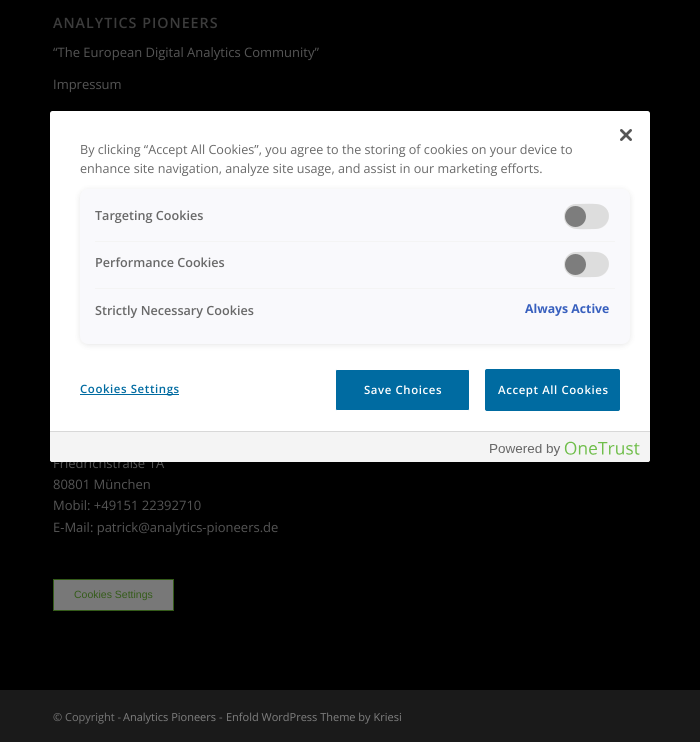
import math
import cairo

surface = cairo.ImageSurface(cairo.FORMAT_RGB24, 700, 742)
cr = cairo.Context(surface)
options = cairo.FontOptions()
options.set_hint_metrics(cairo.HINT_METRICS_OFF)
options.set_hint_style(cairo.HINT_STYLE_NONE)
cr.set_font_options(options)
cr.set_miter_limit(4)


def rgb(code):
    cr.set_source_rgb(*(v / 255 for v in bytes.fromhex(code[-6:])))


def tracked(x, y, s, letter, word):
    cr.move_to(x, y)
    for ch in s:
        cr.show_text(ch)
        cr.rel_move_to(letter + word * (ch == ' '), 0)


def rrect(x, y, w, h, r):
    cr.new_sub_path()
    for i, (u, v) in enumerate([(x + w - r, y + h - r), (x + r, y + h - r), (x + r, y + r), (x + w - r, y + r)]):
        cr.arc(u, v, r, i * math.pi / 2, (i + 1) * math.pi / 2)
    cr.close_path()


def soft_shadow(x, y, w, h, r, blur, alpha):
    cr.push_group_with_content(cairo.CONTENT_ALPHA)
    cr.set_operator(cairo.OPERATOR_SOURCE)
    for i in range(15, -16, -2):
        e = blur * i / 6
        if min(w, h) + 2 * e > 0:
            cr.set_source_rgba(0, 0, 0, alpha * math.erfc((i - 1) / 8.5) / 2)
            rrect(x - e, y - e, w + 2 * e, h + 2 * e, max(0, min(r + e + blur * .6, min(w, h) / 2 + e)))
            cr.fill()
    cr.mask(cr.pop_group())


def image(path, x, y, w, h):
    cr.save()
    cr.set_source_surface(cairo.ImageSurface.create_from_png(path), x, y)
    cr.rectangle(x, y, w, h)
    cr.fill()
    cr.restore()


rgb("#000000")
cr.paint()
rgb("#787878")
cr.rectangle(53.5, 579.5, 120, 31)
cr.fill_preserve()
rgb("#345b19")
cr.set_line_width(1)
cr.stroke()
rgb("#1a1a1a")
cr.rectangle(0, 690, 700, 52)
cr.fill()
rgb("#000000")
soft_shadow(50, 111, 600, 351, 2.5, 9, 0.2)
cr.select_font_face("Open Sans SemiBold")
cr.set_font_size(14.25)
rgb("#3c3c3c")
tracked(53, 28, "ANALYTICS PIONEERS", 1, 0)
cr.select_font_face("Open Sans")
cr.set_font_size(13)
rgb("#555555")
for x, y, s in [
    (53, 57, "“The European Digital Analytics Community”"),
    (53, 89, "Impressum"),
    (53, 468, "Friedrichstraße 1A"),
    (53, 489, "80801 München"),
    (53, 510, "Mobil: +49151 22392710"),
    (53, 532, "E-Mail: patrick@analytics-pioneers.de"),
]:
    cr.move_to(x, y)
    cr.show_text(s)
cr.select_font_face("Liberation Sans")
cr.set_font_size(10.5)
rgb("#345b19")
cr.move_to(74, 598)
cr.show_text("Cookies Settings")
cr.select_font_face("Open Sans")
cr.set_font_size(11)
rgb("#777777")
cr.move_to(53, 721)
cr.show_text("© Copyright -")
rgb("#808080")
cr.move_to(123, 721)
cr.show_text("Analytics Pioneers")
rgb("#777777")
cr.move_to(219, 721)
cr.show_text("-")
rgb("#808080")
cr.move_to(226, 721)
cr.show_text("Enfold WordPress Theme by Kriesi")
rgb("#ffffff")
rrect(50, 111, 600, 351, 2.5)
cr.fill()
image("img/1.png", 620, 129, 12, 12)
cr.set_font_size(12.6)
rgb("#696969")
cr.move_to(80, 154)
cr.show_text("By clicking “Accept All Cookies”, you agree to the storing of cookies on your device to")
cr.move_to(80, 173)
cr.show_text("enhance site navigation, analyze site usage, and assist in our marketing efforts.")
rgb("#000000")
soft_shadow(80, 190, 550, 155, 8, 3, 0.1)
rgb("#f9f9fc")
rrect(80, 189, 550, 155, 8)
cr.fill()
rgb("#f4f4f4")
cr.rectangle(95, 241, 520, 1)
cr.fill()
cr.select_font_face("Open Sans SemiBold")
rgb("#696969")
cr.move_to(95, 220)
cr.show_text("Targeting Cookies")
rgb("#f2f1f1")
rrect(564, 204, 45, 25, 12.5)
cr.fill()
rgb("#dddddd")
cr.new_path()
cr.move_to(576, 204)
cr.curve_to(583, 204, 596, 203, 601, 205)
cr.curve_to(614, 210, 610, 228, 596, 229)
cr.curve_to(591, 229, 576, 230, 572, 228)
cr.curve_to(559, 223, 563, 204, 576, 204)
cr.close_path()
cr.fill()
rgb("#7d7d7d")
cr.arc(575.5, 216.5, 10.5, 0, 2 * math.pi)
cr.fill()
rgb("#f4f4f4")
cr.rectangle(95, 288, 520, 1)
cr.fill()
rgb("#696969")
cr.move_to(95, 267)
cr.show_text("Performance Cookies")
rgb("#f2f1f1")
rrect(564, 252, 45, 25, 12.5)
cr.fill()
rgb("#dddddd")
cr.new_path()
cr.move_to(576, 252)
cr.curve_to(583, 252, 596, 251, 601, 253)
cr.curve_to(614, 258, 610, 276, 596, 277)
cr.curve_to(591, 277, 576, 278, 572, 276)
cr.curve_to(559, 271, 563, 252, 576, 252)
cr.close_path()
cr.fill()
rgb("#7d7d7d")
cr.arc(575.5, 264.5, 10.5, 0, 2 * math.pi)
cr.fill()
rgb("#696969")
cr.move_to(95, 315)
cr.show_text("Strictly Necessary Cookies")
cr.select_font_face("Open Sans", cairo.FONT_SLANT_NORMAL, cairo.FONT_WEIGHT_BOLD)
cr.set_font_size(12.25)
rgb("#3860be")
cr.move_to(525, 313)
cr.show_text("Always Active")
rgb("#006ba1")
cr.rectangle(80, 394, 99, 1)
cr.fill()
cr.select_font_face("Open Sans SemiBold")
cr.set_font_size(11.4)
tracked(80, 393, "Cookies Settings", 0.6, 0)
rrect(335.5, 369.5, 134, 41, 1.5)
cr.fill_preserve()
rgb("#ffffff")
cr.stroke()
tracked(364, 394, "Save Choices", 0.6, 0)
rgb("#006ba1")
rrect(485.5, 369.5, 134, 41, 1.5)
cr.fill_preserve()
cr.stroke()
rgb("#ffffff")
tracked(498, 394, "Accept All Cookies", 0.6, 0)
rgb("#f4f4f4")
cr.new_path()
cr.move_to(50, 431)
cr.line_to(650, 431)
cr.line_to(650, 459.5)
cr.curve_to(650, 461, 649, 462, 647.5, 462)
cr.line_to(52.5, 462)
cr.curve_to(51, 462, 50, 461, 50, 459.5)
cr.close_path()
cr.fill()
rgb("#d8d8d8")
cr.rectangle(50, 431, 600, 1)
cr.fill()
image("img/2.png", 490, 441, 150, 15)
surface.write_to_png("page.png")
